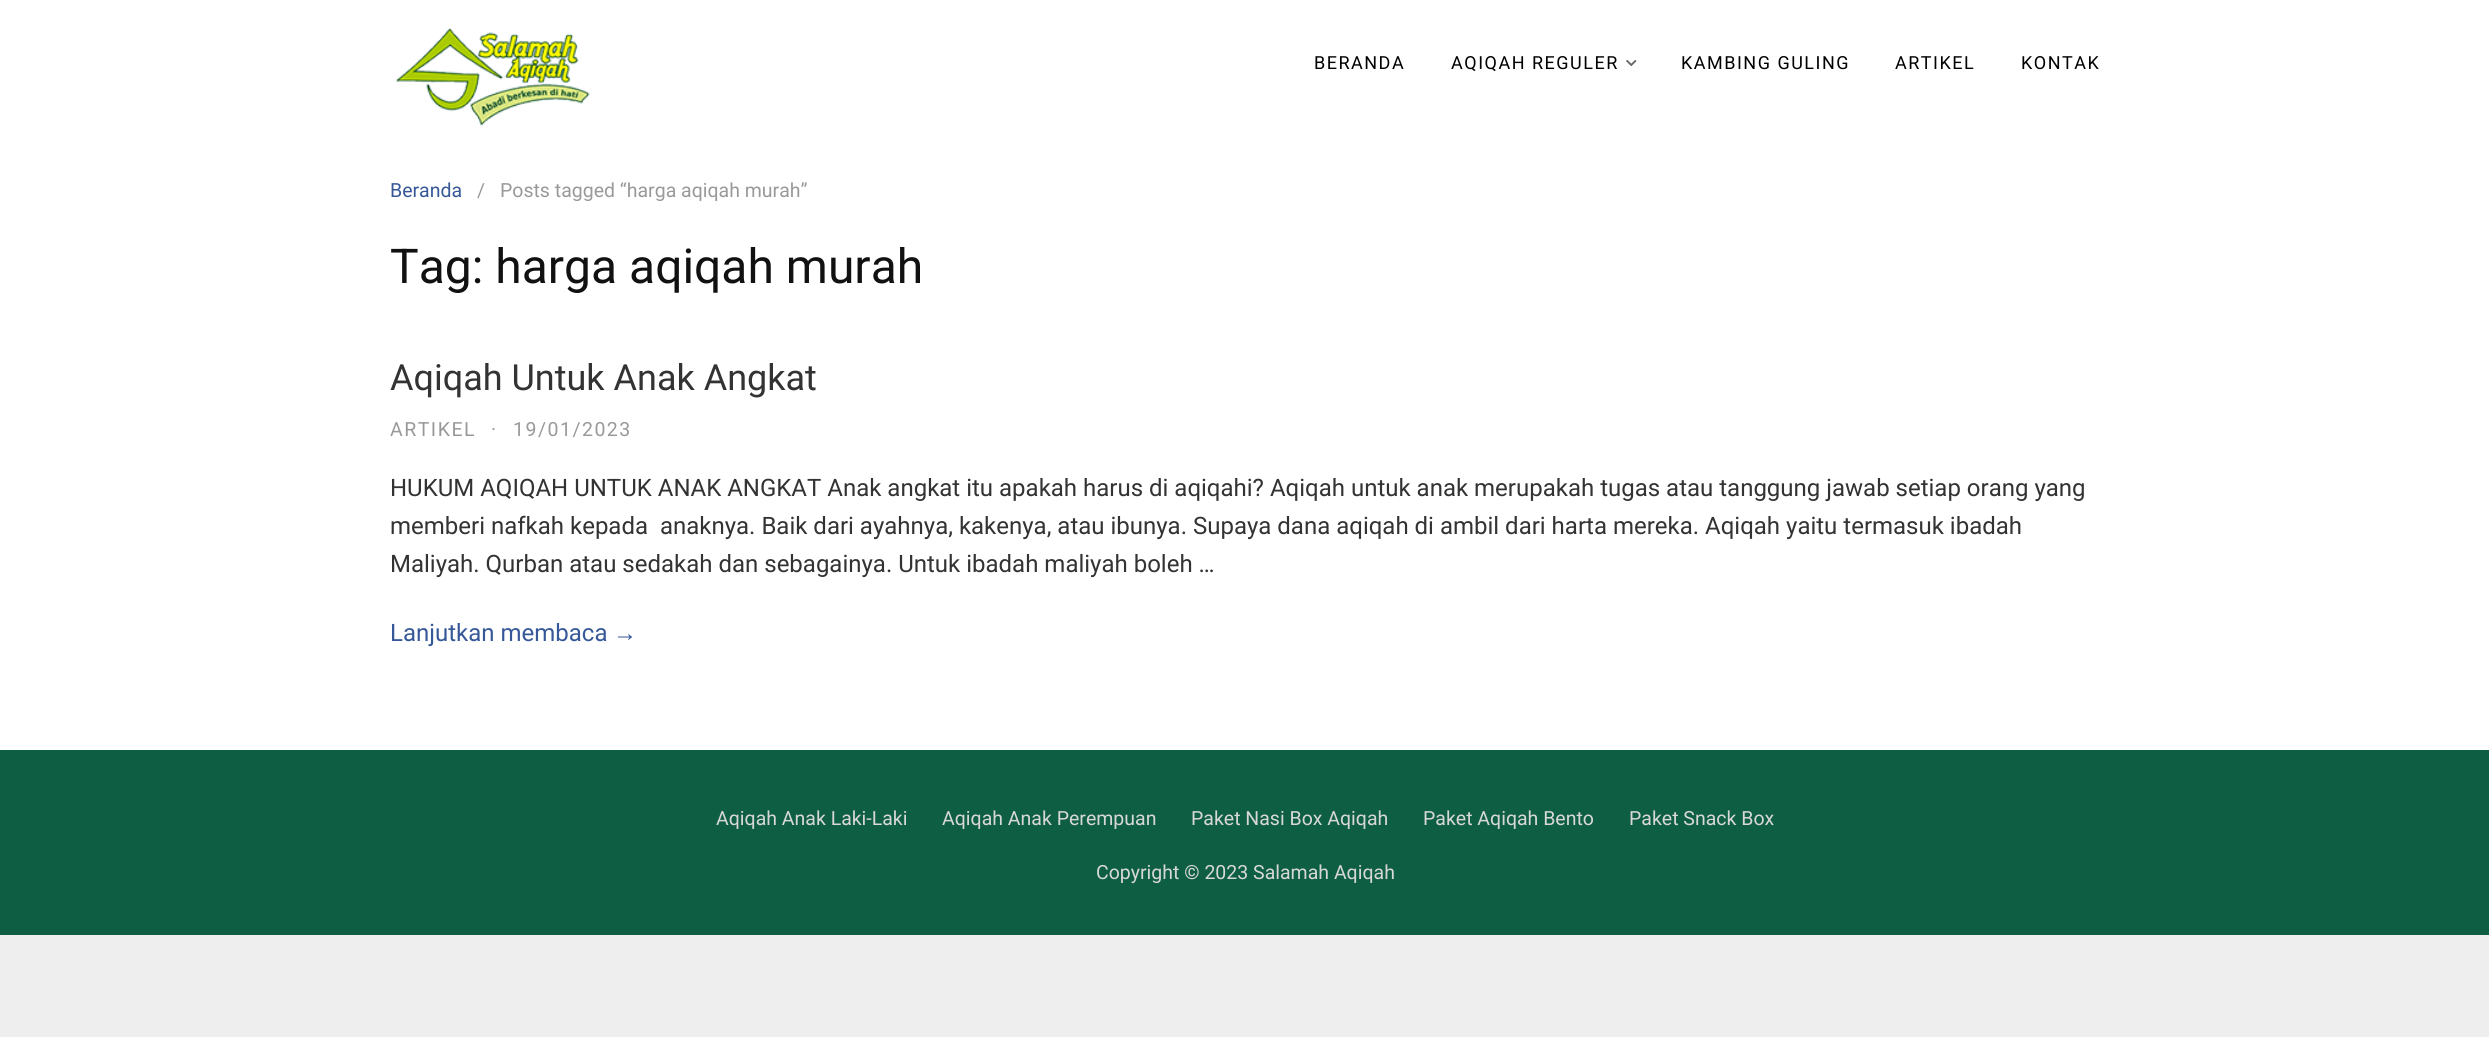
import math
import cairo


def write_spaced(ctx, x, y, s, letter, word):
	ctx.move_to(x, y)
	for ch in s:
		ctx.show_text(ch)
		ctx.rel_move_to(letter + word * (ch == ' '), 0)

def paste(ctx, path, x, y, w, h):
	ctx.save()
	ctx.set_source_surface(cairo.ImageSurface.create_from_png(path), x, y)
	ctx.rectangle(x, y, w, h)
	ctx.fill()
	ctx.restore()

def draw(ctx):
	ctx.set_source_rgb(0.933, 0.933, 0.933)
	ctx.paint()
	ctx.set_source_rgb(1, 1, 1)
	ctx.rectangle(0, 0, 2489, 750)
	ctx.fill()
	paste(ctx, 'media/1.png', 396, 28, 194, 98)
	ctx.select_font_face('Roboto')
	ctx.set_font_size(18)
	ctx.set_source_rgb(0, 0, 0)
	write_spaced(ctx, 1314, 69, 'BERANDA', 1.5, 0)
	write_spaced(ctx, 1451, 69, 'AQIQAH REGULER', 1.5, 0)
	paste(ctx, 'media/2.png', 1626, 60, 11, 6)
	for x, y, s in [
		(1681, 69, 'KAMBING GULING'),
		(1895, 69, 'ARTIKEL'),
		(2021, 69, 'KONTAK'),
	]:
		write_spaced(ctx, x, y, s, 1.5, 0)
	ctx.set_font_size(19.5)
	ctx.set_source_rgb(0.212, 0.345, 0.6)
	ctx.move_to(390, 197)
	ctx.show_text('Beranda')
	ctx.set_source_rgb(0.6, 0.6, 0.6)
	ctx.move_to(477, 197)
	ctx.show_text('/')
	ctx.move_to(500, 197)
	ctx.show_text('Posts tagged “harga aqiqah murah”')
	ctx.set_font_size(48)
	ctx.set_source_rgb(0.067, 0.067, 0.067)
	ctx.move_to(390, 283)
	ctx.show_text('Tag: harga aqiqah murah')
	ctx.set_font_size(36)
	ctx.set_source_rgb(0.2, 0.2, 0.2)
	ctx.move_to(390, 390)
	ctx.show_text('Aqiqah Untuk Anak Angkat')
	ctx.set_font_size(19.5)
	ctx.set_source_rgb(0.6, 0.6, 0.6)
	for x, y, s in [
		(390, 436, 'ARTIKEL'),
		(491, 436, '·'),
		(513, 436, '19/01/2023'),
	]:
		write_spaced(ctx, x, y, s, 1.5, 0)
	ctx.set_font_size(24)
	ctx.set_source_rgb(0.2, 0.2, 0.2)
	for x, y, s in [
		(390, 496, 'HUKUM AQIQAH UNTUK ANAK ANGKAT Anak angkat itu apakah harus di aqiqahi? Aqiqah untuk anak merupakah tugas atau tanggung jawab setiap orang yang'),
		(390, 534, 'memberi nafkah kepada  anaknya. Baik dari ayahnya, kakenya, atau ibunya. Supaya dana aqiqah di ambil dari harta mereka. Aqiqah yaitu termasuk ibadah'),
		(390, 572, 'Maliyah. Qurban atau sedakah dan sebagainya. Untuk ibadah maliyah boleh …'),
	]:
		ctx.move_to(x, y)
		ctx.show_text(s)
	ctx.set_source_rgb(0.212, 0.345, 0.6)
	ctx.move_to(390, 641)
	ctx.show_text('Lanjutkan membaca')
	ctx.select_font_face('Liberation Sans')
	ctx.move_to(613, 641)
	ctx.show_text('→')
	ctx.set_source_rgb(0.055, 0.369, 0.267)
	ctx.rectangle(0, 750, 2489, 185)
	ctx.fill()
	ctx.select_font_face('Roboto')
	ctx.set_font_size(19.5)
	ctx.set_source_rgb(0.847, 0.847, 0.847)
	for x, y, s in [
		(716, 825, 'Aqiqah Anak Laki-Laki'),
		(942, 825, 'Aqiqah Anak Perempuan'),
		(1191, 825, 'Paket Nasi Box Aqiqah'),
		(1423, 825, 'Paket Aqiqah Bento'),
		(1629, 825, 'Paket Snack Box'),
		(1096, 879, 'Copyright © 2023 Salamah Aqiqah'),
	]:
		ctx.move_to(x, y)
		ctx.show_text(s)


surface = cairo.ImageSurface(cairo.FORMAT_RGB24, 2489, 1037)
ctx = cairo.Context(surface)
options = cairo.FontOptions()
options.set_hint_metrics(cairo.HINT_METRICS_OFF)
options.set_hint_style(cairo.HINT_STYLE_NONE)
ctx.set_font_options(options)
ctx.set_miter_limit(4)
draw(ctx)
surface.write_to_png('image.png')
